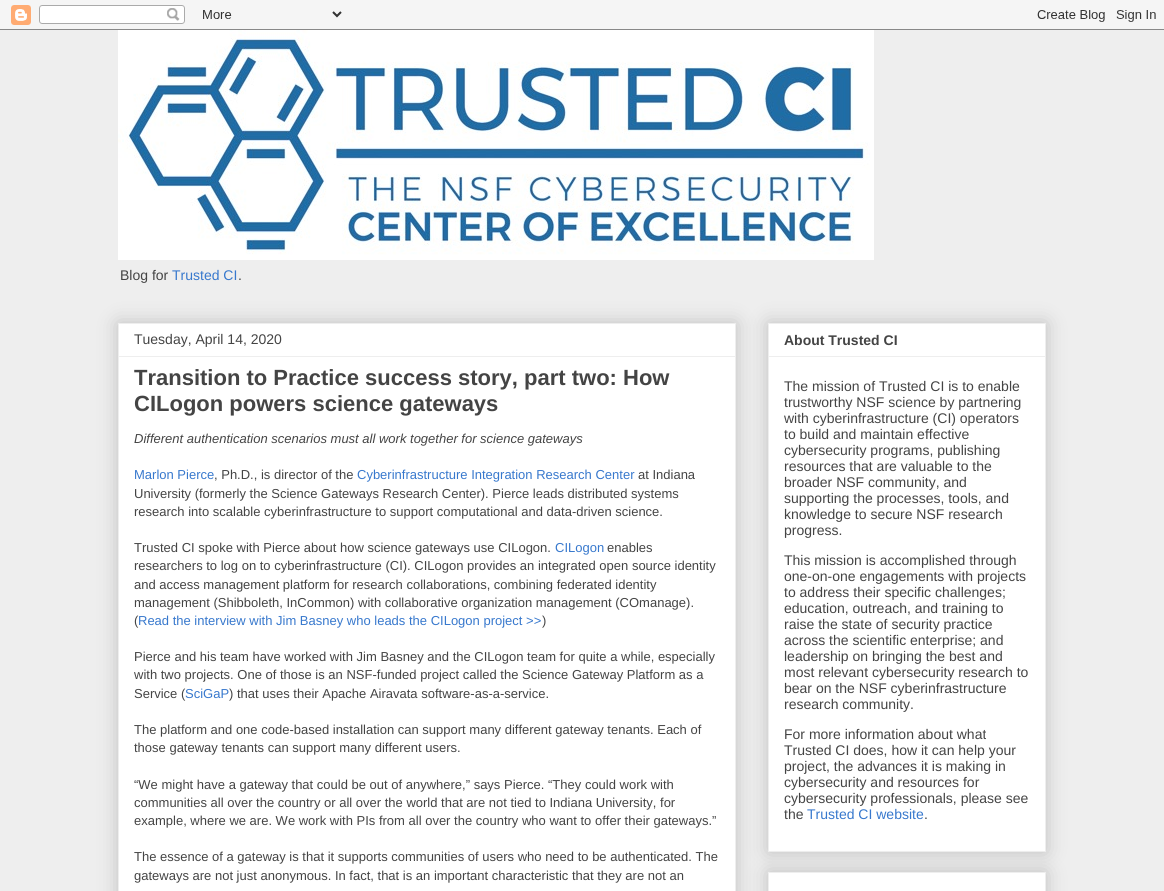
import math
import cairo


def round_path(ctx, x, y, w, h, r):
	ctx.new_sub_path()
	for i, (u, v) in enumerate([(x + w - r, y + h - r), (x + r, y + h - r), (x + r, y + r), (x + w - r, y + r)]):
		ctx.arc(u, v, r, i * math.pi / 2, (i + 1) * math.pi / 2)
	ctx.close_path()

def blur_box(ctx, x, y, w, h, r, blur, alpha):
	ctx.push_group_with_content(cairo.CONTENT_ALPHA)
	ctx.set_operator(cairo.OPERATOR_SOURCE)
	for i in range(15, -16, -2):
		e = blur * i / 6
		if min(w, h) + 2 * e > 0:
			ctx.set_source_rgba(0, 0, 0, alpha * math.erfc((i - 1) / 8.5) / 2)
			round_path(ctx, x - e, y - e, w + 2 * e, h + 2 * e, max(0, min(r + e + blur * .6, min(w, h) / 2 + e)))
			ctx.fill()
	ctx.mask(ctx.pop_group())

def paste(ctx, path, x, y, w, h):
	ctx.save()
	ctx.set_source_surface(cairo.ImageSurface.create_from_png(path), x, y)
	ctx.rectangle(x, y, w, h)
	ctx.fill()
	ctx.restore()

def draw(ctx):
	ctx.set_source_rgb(0.933, 0.933, 0.933)
	ctx.paint()
	paste(ctx, 'media/1.png', 0, 0, 1164, 30)
	paste(ctx, 'media/2.png', 118, 30, 756, 230)
	ctx.select_font_face('Liberation Sans')
	ctx.set_font_size(14)
	ctx.set_source_rgb(0.267, 0.267, 0.267)
	ctx.move_to(120, 280)
	ctx.show_text('Blog for')
	ctx.set_source_rgb(0.216, 0.471, 0.804)
	ctx.move_to(172, 280)
	ctx.show_text('Trusted CI')
	ctx.set_source_rgb(0.267, 0.267, 0.267)
	ctx.move_to(238, 280)
	ctx.show_text('.')
	ctx.set_source_rgb(0, 0, 0)
	blur_box(ctx, 118, 323, 618, 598, 0, 10, 0.2)
	ctx.set_source_rgb(1, 1, 1)
	ctx.rectangle(118.5, 323.5, 617, 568)
	ctx.fill_preserve()
	ctx.set_source_rgb(0.933, 0.933, 0.933)
	ctx.set_line_width(1)
	ctx.stroke()
	ctx.set_source_rgb(0.267, 0.267, 0.267)
	ctx.move_to(134, 344)
	ctx.show_text('Tuesday, April 14, 2020')
	ctx.set_source_rgb(0.933, 0.933, 0.933)
	ctx.rectangle(119, 356, 616, 1)
	ctx.fill()
	ctx.select_font_face('Liberation Sans', cairo.FONT_SLANT_NORMAL, cairo.FONT_WEIGHT_BOLD)
	ctx.set_font_size(22)
	ctx.set_source_rgb(0.267, 0.267, 0.267)
	ctx.move_to(134, 385)
	ctx.show_text('Transition to Practice success story, part two: How')
	ctx.move_to(134, 411)
	ctx.show_text('CILogon powers science gateways')
	ctx.select_font_face('Liberation Sans', cairo.FONT_SLANT_ITALIC)
	ctx.set_font_size(13)
	ctx.move_to(134, 443)
	ctx.show_text('Different authentication scenarios must all work together for science gateways')
	ctx.select_font_face('Liberation Sans')
	ctx.set_source_rgb(0.216, 0.471, 0.804)
	ctx.move_to(134, 479)
	ctx.show_text('Marlon Pierce')
	ctx.set_source_rgb(0.267, 0.267, 0.267)
	ctx.move_to(214, 479)
	ctx.show_text(', Ph.D., is director of the')
	ctx.set_source_rgb(0.216, 0.471, 0.804)
	ctx.move_to(357, 479)
	ctx.show_text('Cyberinfrastructure Integration Research Center')
	ctx.set_source_rgb(0.267, 0.267, 0.267)
	for x, y, s in [
		(638, 479, 'at Indiana'),
		(134, 498, 'University (formerly the Science Gateways Research Center). Pierce leads distributed systems'),
		(134, 516, 'research into scalable cyberinfrastructure to support computational and data-driven science.'),
		(134, 552, 'Trusted CI spoke with Pierce about how science gateways use CILogon.'),
	]:
		ctx.move_to(x, y)
		ctx.show_text(s)
	ctx.set_source_rgb(0.216, 0.471, 0.804)
	ctx.move_to(555, 552)
	ctx.show_text('CILogon')
	ctx.set_source_rgb(0.267, 0.267, 0.267)
	for x, y, s in [
		(607, 552, 'enables'),
		(134, 570, 'researchers to log on to cyberinfrastructure (CI). CILogon provides an integrated open source identity'),
		(134, 589, 'and access management platform for research collaborations, combining federated identity'),
		(134, 607, 'management (Shibboleth, InCommon) with collaborative organization management (COmanage).'),
		(134, 625, '('),
	]:
		ctx.move_to(x, y)
		ctx.show_text(s)
	ctx.set_source_rgb(0.216, 0.471, 0.804)
	ctx.move_to(138, 625)
	ctx.show_text('Read the interview with Jim Basney who leads the CILogon project >>')
	ctx.set_source_rgb(0.267, 0.267, 0.267)
	for x, y, s in [
		(542, 625, ')'),
		(134, 661, 'Pierce and his team have worked with Jim Basney and the CILogon team for quite a while, especially'),
		(134, 679, 'with two projects. One of those is an NSF-funded project called the Science Gateway Platform as a'),
		(134, 698, 'Service ('),
	]:
		ctx.move_to(x, y)
		ctx.show_text(s)
	ctx.set_source_rgb(0.216, 0.471, 0.804)
	ctx.move_to(185, 698)
	ctx.show_text('SciGaP')
	ctx.set_source_rgb(0.267, 0.267, 0.267)
	for x, y, s in [
		(229, 698, ') that uses their Apache Airavata software-as-a-service.'),
		(134, 734, 'The platform and one code-based installation can support many different gateway tenants. Each of'),
		(134, 752, 'those gateway tenants can support many different users.'),
		(134, 789, '“We might have a gateway that could be out of anywhere,” says Pierce. “They could work with'),
		(134, 807, 'communities all over the country or all over the world that are not tied to Indiana University, for'),
		(134, 825, 'example, where we are. We work with PIs from all over the country who want to offer their gateways.”'),
		(134, 861, 'The essence of a gateway is that it supports communities of users who need to be authenticated. The'),
		(134, 880, 'gateways are not just anonymous. In fact, that is an important characteristic that they are not an'),
	]:
		ctx.move_to(x, y)
		ctx.show_text(s)
	ctx.set_source_rgb(0, 0, 0)
	blur_box(ctx, 768, 323, 278, 529, 0, 10, 0.2)
	ctx.set_source_rgb(1, 1, 1)
	ctx.rectangle(768.5, 323.5, 277, 528)
	ctx.fill_preserve()
	ctx.set_source_rgb(0.933, 0.933, 0.933)
	ctx.stroke()
	ctx.select_font_face('Liberation Sans', cairo.FONT_SLANT_NORMAL, cairo.FONT_WEIGHT_BOLD)
	ctx.set_font_size(14)
	ctx.set_source_rgb(0.267, 0.267, 0.267)
	ctx.move_to(784, 345)
	ctx.show_text('About Trusted CI')
	ctx.set_source_rgb(0.933, 0.933, 0.933)
	ctx.rectangle(769, 356, 276, 1)
	ctx.fill()
	ctx.select_font_face('Liberation Sans')
	ctx.set_source_rgb(0.267, 0.267, 0.267)
	for x, y, s in [
		(784, 391, 'The mission of Trusted CI is to enable'),
		(784, 407, 'trustworthy NSF science by partnering'),
		(784, 423, 'with cyberinfrastructure (CI) operators'),
		(784, 439, 'to build and maintain effective'),
		(784, 455, 'cybersecurity programs, publishing'),
		(784, 471, 'resources that are valuable to the'),
		(784, 487, 'broader NSF community, and'),
		(784, 503, 'supporting the processes, tools, and'),
		(784, 519, 'knowledge to secure NSF research'),
		(784, 535, 'progress.'),
		(784, 565, 'This mission is accomplished through'),
		(784, 581, 'one-on-one engagements with projects'),
		(784, 597, 'to address their specific challenges;'),
		(784, 613, 'education, outreach, and training to'),
		(784, 629, 'raise the state of security practice'),
		(784, 645, 'across the scientific enterprise; and'),
		(784, 661, 'leadership on bringing the best and'),
		(784, 677, 'most relevant cybersecurity research to'),
		(784, 693, 'bear on the NSF cyberinfrastructure'),
		(784, 709, 'research community.'),
		(784, 739, 'For more information about what'),
		(784, 755, 'Trusted CI does, how it can help your'),
		(784, 771, 'project, the advances it is making in'),
		(784, 787, 'cybersecurity and resources for'),
		(784, 803, 'cybersecurity professionals, please see'),
		(784, 819, 'the'),
	]:
		ctx.move_to(x, y)
		ctx.show_text(s)
	ctx.set_source_rgb(0.216, 0.471, 0.804)
	ctx.move_to(807, 819)
	ctx.show_text('Trusted CI website')
	ctx.set_source_rgb(0.267, 0.267, 0.267)
	ctx.move_to(924, 819)
	ctx.show_text('.')
	ctx.set_source_rgb(0, 0, 0)
	blur_box(ctx, 768, 872, 278, 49, 0, 10, 0.2)
	ctx.set_source_rgb(1, 1, 1)
	ctx.rectangle(768.5, 872.5, 277, 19)
	ctx.fill_preserve()
	ctx.set_source_rgb(0.933, 0.933, 0.933)
	ctx.stroke()


surface = cairo.ImageSurface(cairo.FORMAT_RGB24, 1164, 891)
ctx = cairo.Context(surface)
options = cairo.FontOptions()
options.set_hint_metrics(cairo.HINT_METRICS_OFF)
options.set_hint_style(cairo.HINT_STYLE_NONE)
ctx.set_font_options(options)
ctx.set_miter_limit(4)
draw(ctx)
surface.write_to_png('image.png')
